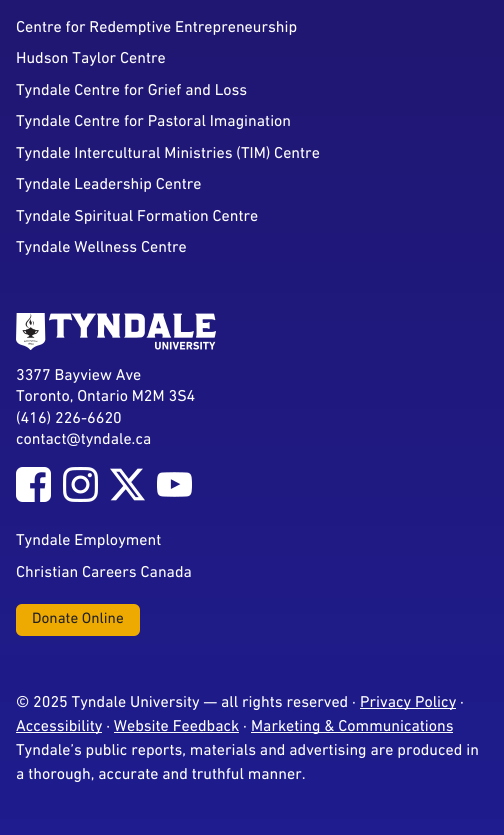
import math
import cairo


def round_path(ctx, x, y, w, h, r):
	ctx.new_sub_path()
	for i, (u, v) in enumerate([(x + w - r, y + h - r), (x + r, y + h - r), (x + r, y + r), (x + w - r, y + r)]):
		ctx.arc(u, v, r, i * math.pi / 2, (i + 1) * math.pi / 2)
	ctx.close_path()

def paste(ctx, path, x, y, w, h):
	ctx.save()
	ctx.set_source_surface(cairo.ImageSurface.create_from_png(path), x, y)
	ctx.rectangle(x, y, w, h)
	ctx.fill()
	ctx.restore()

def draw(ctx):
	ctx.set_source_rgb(1, 1, 1)
	ctx.paint()
	gradient = cairo.LinearGradient(252, -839, 252, 835)
	gradient.add_color_stop_rgba(0, 0.133, 0.067, 0.333, 1)
	gradient.add_color_stop_rgba(1, 0.118, 0.11, 0.557, 1)
	ctx.set_source(gradient)
	ctx.rectangle(0, 0, 504, 835)
	ctx.fill()
	ctx.select_font_face('DIN Next')
	ctx.set_font_size(16)
	ctx.set_source_rgb(1, 1, 1)
	for x, y, s in [
		(16, 32, 'Centre for Redemptive Entrepreneurship'),
		(16, 63, 'Hudson Taylor Centre'),
		(16, 95, 'Tyndale Centre for Grief and Loss'),
		(16, 126, 'Tyndale Centre for Pastoral Imagination'),
		(16, 158, 'Tyndale Intercultural Ministries (TIM) Centre'),
		(16, 189, 'Tyndale Leadership Centre'),
		(16, 221, 'Tyndale Spiritual Formation Centre'),
		(16, 252, 'Tyndale Wellness Centre'),
	]:
		ctx.move_to(x, y)
		ctx.show_text(s)
	paste(ctx, 'media/1.png', 16, 313, 200, 37)
	for x, y, s in [
		(16, 380, '3377 Bayview Ave'),
		(16, 401, 'Toronto, Ontario M2M 3S4'),
		(16, 423, '(416) 226-6620'),
		(16, 444, 'contact@tyndale.ca'),
	]:
		ctx.move_to(x, y)
		ctx.show_text(s)
	paste(ctx, 'media/2.png', 16, 467, 35, 35)
	paste(ctx, 'media/3.png', 63, 467, 35, 35)
	paste(ctx, 'media/4.png', 110, 468, 35, 33)
	paste(ctx, 'media/5.png', 157, 472, 35, 25)
	ctx.move_to(16, 545)
	ctx.show_text('Tyndale Employment')
	ctx.move_to(16, 577)
	ctx.show_text('Christian Careers Canada')
	ctx.set_source_rgb(0.933, 0.667, 0)
	round_path(ctx, 16, 604, 124, 32, 6)
	ctx.fill()
	ctx.set_font_size(15.25)
	ctx.set_source_rgb(0.133, 0.133, 0.133)
	ctx.move_to(32, 623)
	ctx.show_text('Donate Online')
	ctx.set_font_size(16)
	ctx.set_source_rgb(1, 1, 1)
	ctx.move_to(16, 707)
	ctx.show_text('© 2025 Tyndale University — all rights reserved ·')
	ctx.rectangle(360, 708, 96, 1)
	ctx.fill()
	ctx.move_to(360, 707)
	ctx.show_text('Privacy Policy ·')
	ctx.rectangle(16, 732, 86, 1)
	ctx.fill()
	ctx.move_to(16, 731)
	ctx.show_text('Accessibility · Website Feedback ·')
	ctx.rectangle(251, 732, 202, 1)
	ctx.fill()
	ctx.move_to(251, 731)
	ctx.show_text('Marketing & Communications')
	ctx.rectangle(114, 732, 125, 1)
	ctx.fill()
	ctx.move_to(16, 755)
	ctx.show_text('Tyndale’s public reports, materials and advertising are produced in')
	ctx.move_to(16, 779)
	ctx.show_text('a thorough, accurate and truthful manner.')


surface = cairo.ImageSurface(cairo.FORMAT_RGB24, 504, 835)
ctx = cairo.Context(surface)
options = cairo.FontOptions()
options.set_hint_metrics(cairo.HINT_METRICS_OFF)
options.set_hint_style(cairo.HINT_STYLE_NONE)
ctx.set_font_options(options)
ctx.set_miter_limit(4)
draw(ctx)
surface.write_to_png('image.png')
